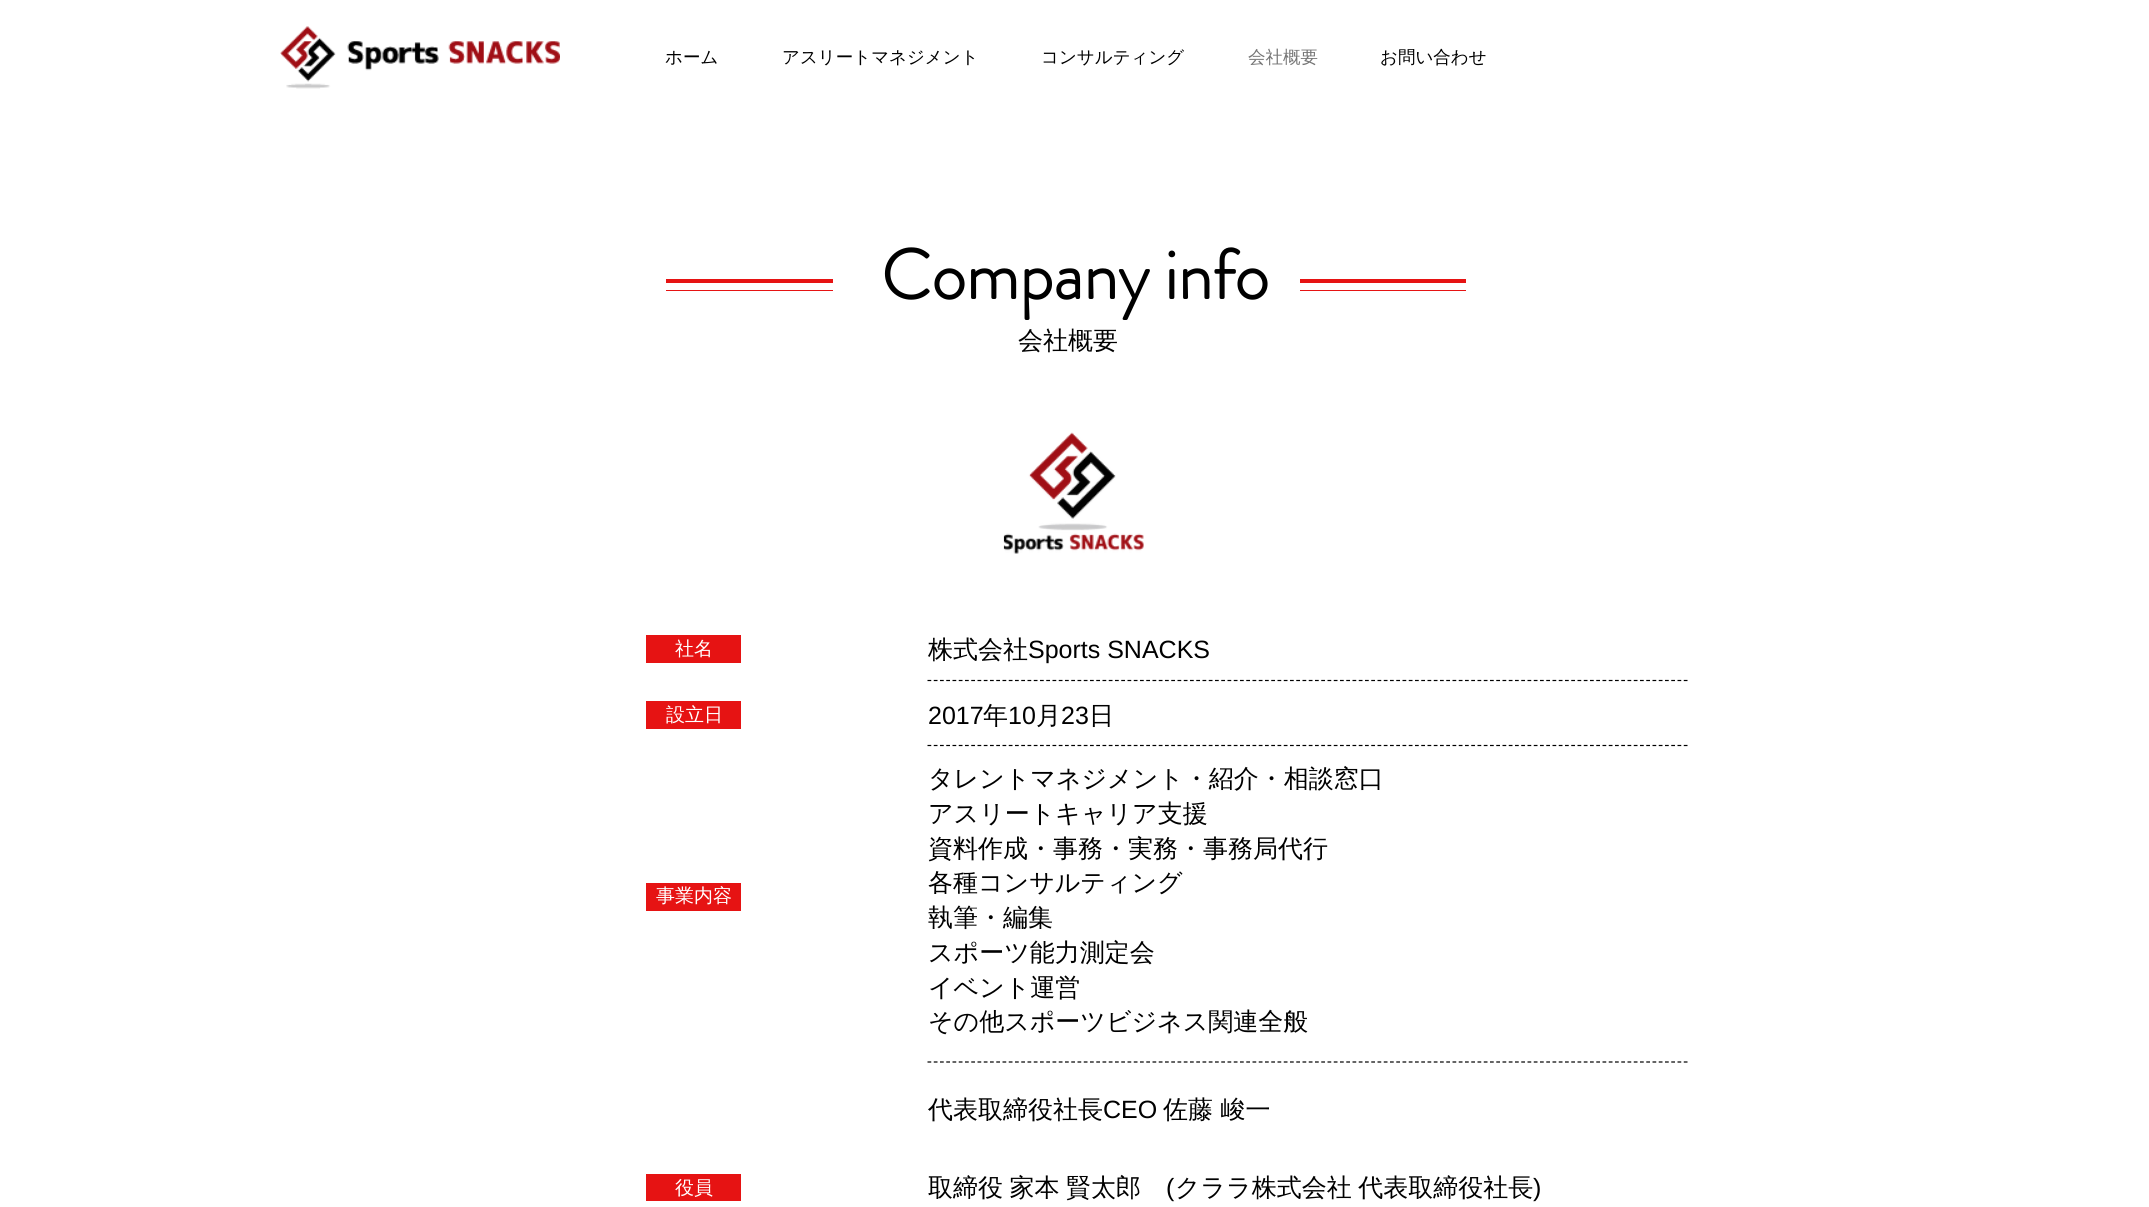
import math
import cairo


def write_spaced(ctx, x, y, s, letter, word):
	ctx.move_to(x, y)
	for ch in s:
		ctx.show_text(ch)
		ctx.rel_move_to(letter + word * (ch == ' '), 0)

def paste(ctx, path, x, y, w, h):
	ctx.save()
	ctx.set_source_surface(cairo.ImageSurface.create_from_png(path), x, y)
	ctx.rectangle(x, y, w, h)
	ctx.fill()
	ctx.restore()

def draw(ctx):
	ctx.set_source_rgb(1, 1, 1)
	ctx.paint()
	paste(ctx, 'media/1.png', 280, 26, 280, 63)
	ctx.select_font_face('WenQuanYi Zen Hei Medium')
	ctx.set_font_size(17.5)
	ctx.set_source_rgb(0, 0, 0)
	for x, y, s in [
		(665, 63, 'ホーム'),
		(782, 63, 'アスリートマネジメント'),
		(1041, 63, 'コンサルティング'),
	]:
		ctx.move_to(x, y)
		ctx.show_text(s)
	ctx.set_source_rgb(0.459, 0.459, 0.459)
	ctx.move_to(1248, 63)
	ctx.show_text('会社概要')
	ctx.set_source_rgb(0, 0, 0)
	ctx.move_to(1380, 63)
	ctx.show_text('お問い合わせ')
	ctx.set_source_rgb(0.902, 0.075, 0.075)
	ctx.rectangle(666, 279, 167, 4)
	ctx.fill()
	ctx.rectangle(666, 290, 167, 1)
	ctx.fill()
	ctx.select_font_face('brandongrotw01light', cairo.FONT_SLANT_NORMAL, cairo.FONT_WEIGHT_BOLD)
	ctx.set_font_size(70)
	ctx.set_source_rgb(0, 0, 0)
	ctx.move_to(881, 299)
	ctx.show_text('Company info')
	ctx.set_source_rgb(0.902, 0.075, 0.075)
	ctx.rectangle(1300, 279, 166, 4)
	ctx.fill()
	ctx.rectangle(1300, 290, 166, 1)
	ctx.fill()
	ctx.select_font_face('WenQuanYi Zen Hei Medium')
	ctx.set_font_size(25)
	ctx.set_source_rgb(0, 0, 0)
	ctx.move_to(1018, 349)
	ctx.show_text('会社概要')
	paste(ctx, 'media/2.png', 1003, 432, 141, 122)
	ctx.set_source_rgb(0.902, 0.075, 0.075)
	ctx.rectangle(646, 635, 95, 28)
	ctx.fill()
	ctx.set_font_size(19)
	ctx.set_source_rgb(1, 1, 1)
	ctx.move_to(675, 655)
	ctx.show_text('社名')
	ctx.set_font_size(25)
	ctx.set_source_rgb(0, 0, 0)
	ctx.move_to(928, 658)
	ctx.show_text('株式会社')
	ctx.select_font_face('Liberation Sans')
	ctx.move_to(1028, 658)
	ctx.show_text('Sports SNACKS')
	ctx.new_path()
	ctx.move_to(927.5, 680.5)
	ctx.line_to(1687.5, 680.5)
	ctx.set_line_width(1.2)
	ctx.set_dash([3.75, 2.5])
	ctx.stroke()
	ctx.set_source_rgb(0.902, 0.075, 0.075)
	ctx.rectangle(646, 701, 95, 28)
	ctx.fill()
	ctx.select_font_face('WenQuanYi Zen Hei Medium')
	ctx.set_font_size(19)
	ctx.set_source_rgb(1, 1, 1)
	ctx.move_to(666, 721)
	ctx.show_text('設立日')
	ctx.select_font_face('Liberation Sans')
	ctx.set_font_size(25)
	ctx.set_source_rgb(0, 0, 0)
	ctx.move_to(928, 724)
	ctx.show_text('2017')
	ctx.select_font_face('WenQuanYi Zen Hei Medium')
	ctx.move_to(983, 724)
	ctx.show_text('年')
	ctx.select_font_face('Liberation Sans')
	ctx.move_to(1008, 724)
	ctx.show_text('10')
	ctx.select_font_face('WenQuanYi Zen Hei Medium')
	ctx.move_to(1036, 724)
	ctx.show_text('月')
	ctx.select_font_face('Liberation Sans')
	ctx.move_to(1061, 724)
	ctx.show_text('23')
	ctx.select_font_face('WenQuanYi Zen Hei Medium')
	ctx.move_to(1089, 724)
	ctx.show_text('日')
	ctx.new_path()
	ctx.move_to(927.5, 745.5)
	ctx.line_to(1687.5, 745.5)
	ctx.stroke()
	ctx.set_source_rgb(0.902, 0.075, 0.075)
	ctx.rectangle(646, 883, 95, 28)
	ctx.fill()
	ctx.set_source_rgb(0, 0, 0)
	for x, y, s in [
		(928, 787, 'タレントマネジメント・紹介・相談窓口'),
		(928, 822, 'アスリートキャリア支援'),
		(928, 857, '資料作成・事務・実務・事務局代行'),
		(928, 891, '各種コンサルティング'),
		(928, 926, '執筆・編集'),
		(928, 961, 'スポーツ能力測定会'),
		(928, 996, 'イベント運営'),
		(928, 1030, 'その他スポーツビジネス関連全般'),
	]:
		ctx.move_to(x, y)
		ctx.show_text(s)
	ctx.set_font_size(19)
	ctx.set_source_rgb(1, 1, 1)
	ctx.move_to(656, 902)
	ctx.show_text('事業内容')
	ctx.new_path()
	ctx.move_to(927.5, 1062)
	ctx.line_to(1687.5, 1062)
	ctx.set_source_rgb(0, 0, 0)
	ctx.stroke()
	ctx.set_font_size(25)
	ctx.move_to(928, 1118)
	ctx.show_text('代表取締役社長')
	ctx.select_font_face('Liberation Sans')
	ctx.move_to(1103, 1118)
	ctx.show_text('CEO')
	ctx.select_font_face('WenQuanYi Zen Hei Medium')
	ctx.move_to(1163, 1118)
	ctx.show_text('佐藤 峻一')
	ctx.set_source_rgb(0.902, 0.075, 0.075)
	ctx.rectangle(646, 1174, 95, 27)
	ctx.fill()
	ctx.set_font_size(19)
	ctx.set_source_rgb(1, 1, 1)
	ctx.move_to(675, 1194)
	ctx.show_text('役員')
	ctx.set_font_size(25)
	ctx.set_source_rgb(0, 0, 0)
	write_spaced(ctx, 928, 1196, '取締役 家本 賢太郎', 0, -1)
	ctx.select_font_face('Liberation Sans')
	ctx.move_to(1166, 1196)
	ctx.show_text('(')
	ctx.select_font_face('WenQuanYi Zen Hei Medium')
	write_spaced(ctx, 1175, 1196, 'クララ株式会社 代表取締役社長', 0, -1)
	ctx.select_font_face('Liberation Sans')
	ctx.move_to(1533, 1196)
	ctx.show_text(')')


surface = cairo.ImageSurface(cairo.FORMAT_RGB24, 2149, 1207)
ctx = cairo.Context(surface)
options = cairo.FontOptions()
options.set_hint_metrics(cairo.HINT_METRICS_OFF)
options.set_hint_style(cairo.HINT_STYLE_NONE)
ctx.set_font_options(options)
ctx.set_miter_limit(4)
draw(ctx)
surface.write_to_png('image.png')
